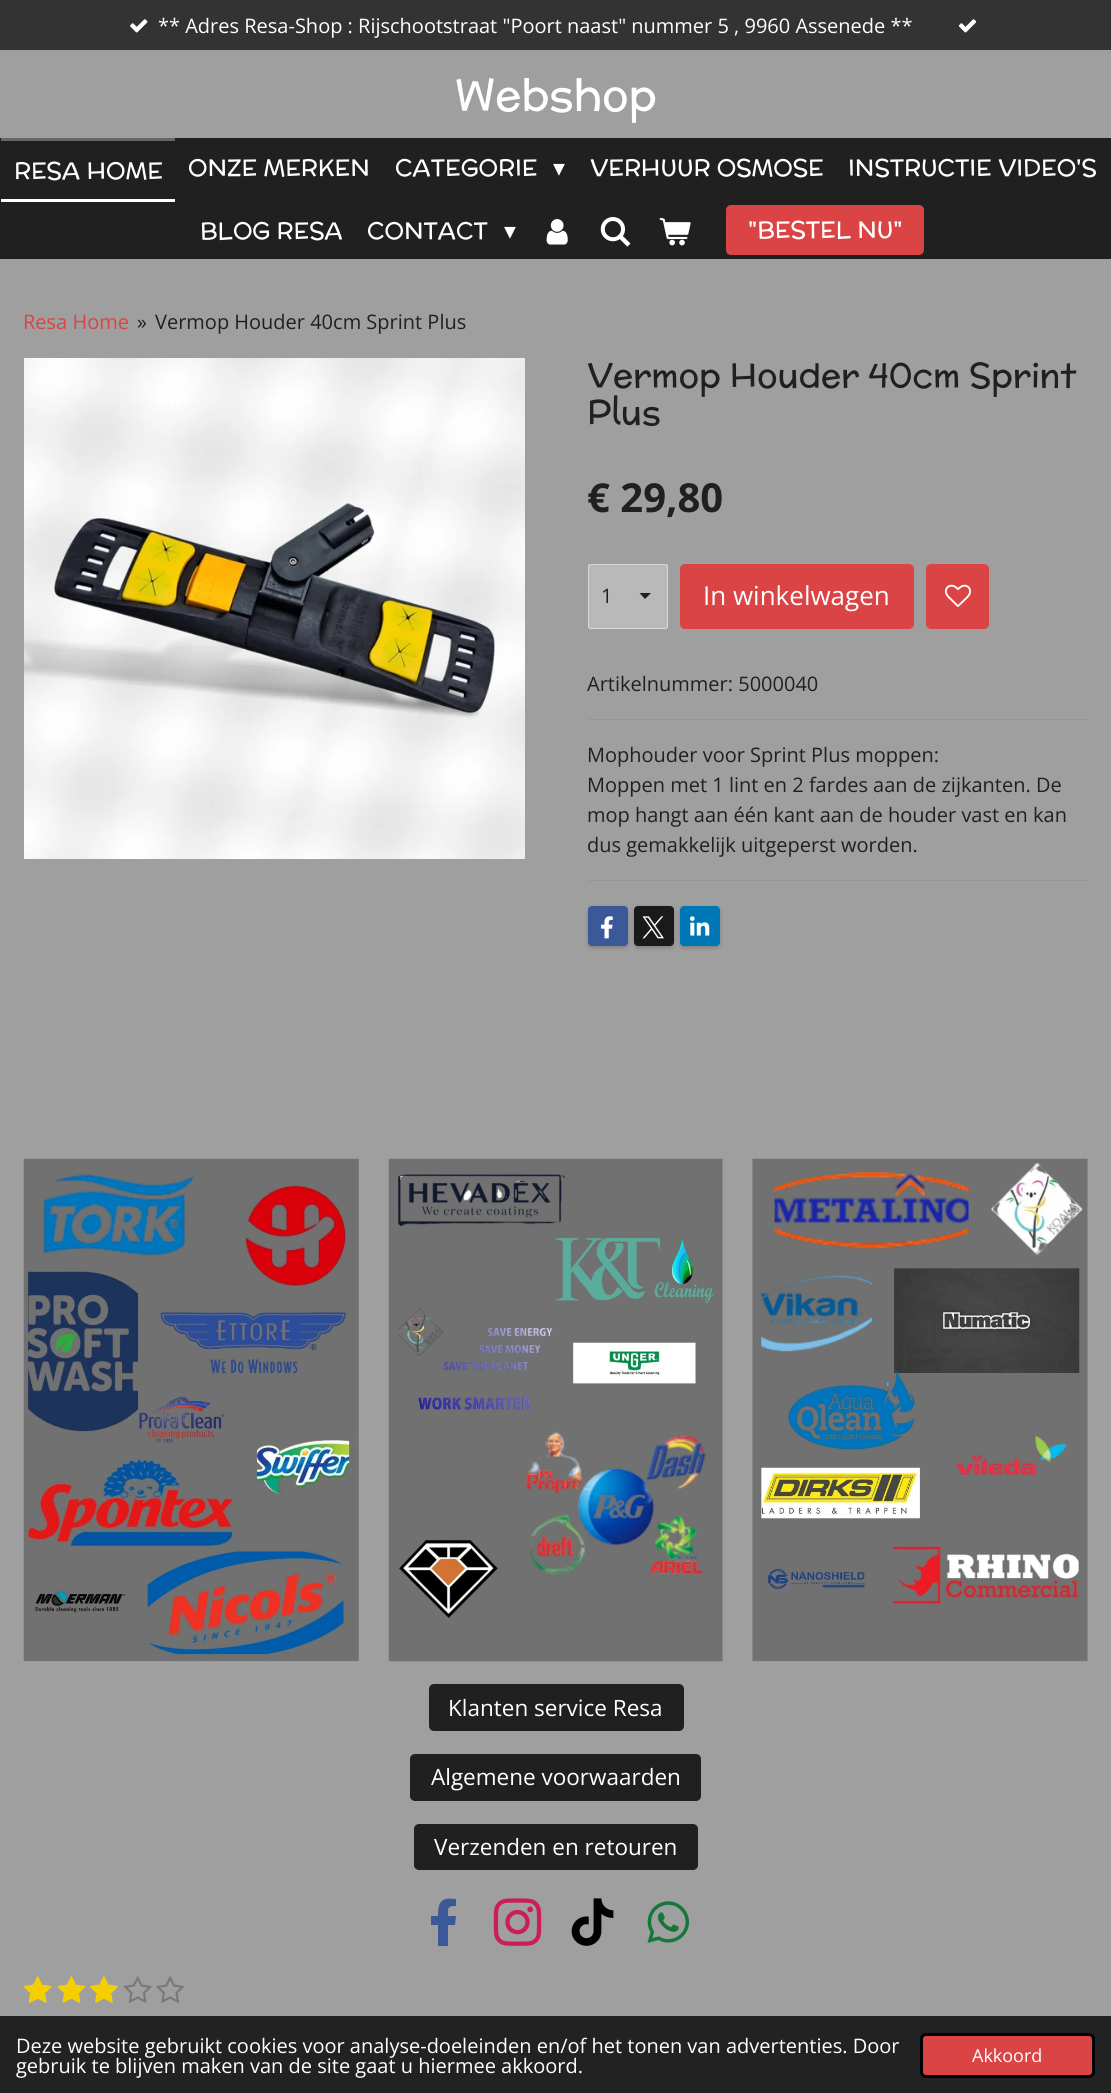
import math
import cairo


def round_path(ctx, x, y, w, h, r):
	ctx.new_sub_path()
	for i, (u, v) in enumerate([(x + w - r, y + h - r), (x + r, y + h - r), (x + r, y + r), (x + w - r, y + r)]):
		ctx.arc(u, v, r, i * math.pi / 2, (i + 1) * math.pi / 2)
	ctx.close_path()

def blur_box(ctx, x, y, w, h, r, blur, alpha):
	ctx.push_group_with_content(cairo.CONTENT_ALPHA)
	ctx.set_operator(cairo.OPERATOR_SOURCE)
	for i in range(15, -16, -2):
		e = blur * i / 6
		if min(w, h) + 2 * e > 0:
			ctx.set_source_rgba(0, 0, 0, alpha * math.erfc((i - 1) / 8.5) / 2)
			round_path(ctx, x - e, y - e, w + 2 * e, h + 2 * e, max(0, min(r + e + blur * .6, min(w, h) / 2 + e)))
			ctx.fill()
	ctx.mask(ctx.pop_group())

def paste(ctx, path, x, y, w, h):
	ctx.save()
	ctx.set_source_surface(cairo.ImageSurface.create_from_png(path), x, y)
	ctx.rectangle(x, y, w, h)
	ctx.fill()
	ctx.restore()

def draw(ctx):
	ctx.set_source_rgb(0.2, 0.2, 0.2)
	ctx.paint()
	paste(ctx, 'media/1.png', 130, 19, 18, 14)
	ctx.select_font_face('Open Sans')
	ctx.set_font_size(20)
	ctx.set_source_rgb(1, 1, 1)
	ctx.move_to(158, 33)
	ctx.show_text('** Adres Resa-Shop : Rijschootstraat "Poort naast" nummer 5 , 9960 Assenede **')
	paste(ctx, 'media/2.png', 958, 19, 19, 14)
	ctx.set_source_rgb(0.624, 0.624, 0.624)
	ctx.rectangle(0, 50, 1111, 88)
	ctx.fill()
	ctx.select_font_face('McLaren')
	ctx.set_font_size(43.75)
	ctx.set_source_rgb(1, 1, 1)
	ctx.move_to(455, 110)
	ctx.show_text('Webshop')
	ctx.set_source_rgb(0.125, 0.125, 0.125)
	ctx.rectangle(0, 138, 1111, 121)
	ctx.fill()
	ctx.set_source_rgb(0.4, 0.4, 0.4)
	ctx.rectangle(1, 138, 174, 3)
	ctx.fill()
	ctx.set_source_rgb(1, 1, 1)
	ctx.rectangle(1, 199, 174, 3)
	ctx.fill()
	ctx.set_font_size(23.75)
	for x, y, s in [
		(14, 179, 'RESA HOME'),
		(188, 176, 'ONZE MERKEN'),
		(395, 176, 'CATEGORIE'),
	]:
		ctx.move_to(x, y)
		ctx.show_text(s)
	ctx.select_font_face('DejaVu Sans')
	ctx.move_to(553, 176)
	ctx.show_text('▾')
	ctx.select_font_face('McLaren')
	for x, y, s in [
		(590, 176, 'VERHUUR OSMOSE'),
		(848, 176, 'INSTRUCTIE VIDEO\'S'),
		(200, 239, 'BLOG RESA'),
		(367, 239, 'CONTACT'),
	]:
		ctx.move_to(x, y)
		ctx.show_text(s)
	ctx.select_font_face('DejaVu Sans')
	ctx.move_to(504, 239)
	ctx.show_text('▾')
	paste(ctx, 'media/3.png', 546, 219, 22, 26)
	paste(ctx, 'media/4.png', 600, 217, 31, 30)
	paste(ctx, 'media/5.png', 659, 217, 32, 29)
	ctx.set_source_rgb(0.855, 0.267, 0.267)
	round_path(ctx, 726, 205, 198, 50, 5)
	ctx.fill()
	ctx.select_font_face('McLaren')
	ctx.set_source_rgb(1, 1, 1)
	ctx.move_to(748, 238)
	ctx.show_text('"BESTEL NU"')
	ctx.set_source_rgb(0.624, 0.624, 0.624)
	ctx.rectangle(0, 259, 1111, 1757)
	ctx.fill()
	ctx.select_font_face('Open Sans')
	ctx.set_font_size(20)
	ctx.set_source_rgb(0.855, 0.267, 0.267)
	ctx.move_to(23, 329)
	ctx.show_text('Resa Home')
	ctx.set_source_rgb(0.125, 0.125, 0.125)
	ctx.move_to(137, 329)
	ctx.show_text('»')
	ctx.move_to(155, 329)
	ctx.show_text('Vermop Houder 40cm Sprint Plus')
	paste(ctx, 'media/6.png', 24, 358, 501, 501)
	ctx.select_font_face('McLaren')
	ctx.set_font_size(33.75)
	ctx.move_to(587, 387)
	ctx.show_text('Vermop Houder 40cm Sprint')
	ctx.move_to(587, 424)
	ctx.show_text('Plus')
	ctx.select_font_face('Open Sans', cairo.FONT_SLANT_NORMAL, cairo.FONT_WEIGHT_BOLD)
	ctx.set_font_size(40)
	ctx.move_to(587, 512)
	ctx.show_text('€ 29,80')
	ctx.set_source_rgb(0.725, 0.725, 0.725)
	round_path(ctx, 588, 564, 80, 65, 2.5)
	ctx.fill()
	ctx.save()
	ctx.rectangle(639, 593, 12, 6)
	ctx.clip()
	ctx.set_source_rgb(0.125, 0.125, 0.125)
	ctx.new_path()
	ctx.move_to(645, 599)
	ctx.line_to(639, 592.5)
	ctx.line_to(651.5, 592.5)
	ctx.close_path()
	ctx.fill()
	ctx.restore()
	round_path(ctx, 588.5, 564.5, 79, 64, 2)
	ctx.set_source_rgba(0.973, 0.973, 0.973, 0.5)
	ctx.set_line_width(1)
	ctx.stroke()
	ctx.select_font_face('Open Sans')
	ctx.set_font_size(20)
	ctx.set_source_rgb(0.125, 0.125, 0.125)
	ctx.move_to(601, 603)
	ctx.show_text('1')
	ctx.set_source_rgb(0.855, 0.267, 0.267)
	round_path(ctx, 680, 564, 234, 65, 5)
	ctx.fill()
	ctx.set_font_size(26)
	ctx.set_source_rgb(1, 1, 1)
	ctx.move_to(703, 605)
	ctx.show_text('In winkelwagen')
	ctx.set_source_rgb(0.855, 0.267, 0.267)
	round_path(ctx, 926, 564, 63, 65, 5)
	ctx.fill()
	paste(ctx, 'media/7.png', 945, 584, 26, 23)
	ctx.set_font_size(20)
	ctx.set_source_rgb(0.125, 0.125, 0.125)
	ctx.move_to(587, 691)
	ctx.show_text('Artikelnummer: 5000040')
	ctx.set_source_rgb(0.588, 0.588, 0.588)
	ctx.rectangle(588, 719, 500, 1)
	ctx.fill()
	ctx.set_source_rgb(0.125, 0.125, 0.125)
	for x, y, s in [
		(587, 762, 'Mophouder voor Sprint Plus moppen:'),
		(587, 792, 'Moppen met 1 lint en 2 fardes aan de zijkanten. De'),
		(587, 822, 'mop hangt aan één kant aan de houder vast en kan'),
		(587, 852, 'dus gemakkelijk uitgeperst worden.'),
	]:
		ctx.move_to(x, y)
		ctx.show_text(s)
	ctx.set_source_rgb(0.588, 0.588, 0.588)
	ctx.rectangle(588, 880, 500, 1)
	ctx.fill()
	ctx.set_source_rgb(0, 0, 0)
	blur_box(ctx, 588, 908, 40, 40, 4, 2, 0.2)
	ctx.set_source_rgb(0.231, 0.349, 0.596)
	round_path(ctx, 588, 906, 40, 40, 4)
	ctx.fill()
	paste(ctx, 'media/8.png', 601, 916, 12, 23)
	ctx.set_source_rgb(0, 0, 0)
	blur_box(ctx, 634, 908, 40, 40, 4, 2, 0.2)
	ctx.set_source_rgb(0.102, 0.102, 0.102)
	round_path(ctx, 634, 906, 40, 40, 4)
	ctx.fill()
	paste(ctx, 'media/9.png', 642, 916, 22, 23)
	ctx.set_source_rgb(0, 0, 0)
	blur_box(ctx, 680, 908, 40, 40, 4, 2, 0.2)
	ctx.set_source_rgb(0, 0.467, 0.71)
	round_path(ctx, 680, 906, 40, 40, 4)
	ctx.fill()
	paste(ctx, 'media/10.png', 690, 916, 20, 20)
	paste(ctx, 'media/11.png', 23, 1158, 336, 504)
	paste(ctx, 'media/12.png', 388, 1158, 335, 504)
	paste(ctx, 'media/13.png', 752, 1158, 336, 504)
	ctx.set_source_rgb(0.125, 0.125, 0.125)
	round_path(ctx, 429, 1684, 255, 47, 5)
	ctx.fill()
	ctx.set_font_size(22.5)
	ctx.set_source_rgb(1, 1, 1)
	ctx.move_to(448, 1716)
	ctx.show_text('Klanten service Resa')
	ctx.set_source_rgb(0.125, 0.125, 0.125)
	round_path(ctx, 410, 1754, 291, 47, 5)
	ctx.fill()
	ctx.set_source_rgb(1, 1, 1)
	ctx.move_to(431, 1785)
	ctx.show_text('Algemene voorwaarden')
	ctx.set_source_rgb(0.125, 0.125, 0.125)
	round_path(ctx, 414, 1824, 284, 46, 5)
	ctx.fill()
	ctx.set_source_rgb(1, 1, 1)
	ctx.move_to(434, 1855)
	ctx.show_text('Verzenden en retouren')
	ctx.set_source_rgb(0.231, 0.349, 0.596)
	ctx.new_path()
	ctx.move_to(455, 1925)
	ctx.line_to(456, 1916)
	ctx.line_to(448, 1916)
	ctx.curve_to(448, 1908, 447, 1906, 456, 1906)
	ctx.line_to(456, 1899)
	ctx.curve_to(441, 1897, 438, 1902, 438, 1916)
	ctx.line_to(431, 1916)
	ctx.line_to(431, 1925)
	ctx.line_to(438, 1925)
	ctx.line_to(438, 1946)
	ctx.line_to(448, 1946)
	ctx.line_to(448, 1925)
	ctx.close_path()
	ctx.fill()
	paste(ctx, 'media/14.png', 493, 1898, 49, 48)
	paste(ctx, 'media/15.png', 571, 1898, 43, 48)
	paste(ctx, 'media/16.png', 647, 1901, 43, 42)
	paste(ctx, 'media/17.png', 24, 1976, 28, 27)
	paste(ctx, 'media/18.png', 57, 1976, 29, 27)
	paste(ctx, 'media/19.png', 90, 1976, 28, 27)
	paste(ctx, 'media/20.png', 123, 1976, 29, 27)
	paste(ctx, 'media/21.png', 156, 1976, 28, 27)
	ctx.set_source_rgb(0.133, 0.133, 0.133)
	ctx.rectangle(0, 2016, 1111, 77)
	ctx.fill()
	ctx.set_font_size(20)
	ctx.set_source_rgb(1, 1, 1)
	ctx.move_to(16, 2053)
	ctx.show_text('Deze website gebruikt cookies voor analyse-doeleinden en/of het tonen van advertenties. Door')
	ctx.move_to(16, 2073)
	ctx.show_text('gebruik te blijven maken van de site gaat u hiermee akkoord.')
	ctx.set_source_rgb(0.855, 0.267, 0.267)
	round_path(ctx, 921.5, 2034.5, 172, 42, 4.5)
	ctx.fill_preserve()
	ctx.set_source_rgb(0, 0, 0)
	ctx.set_line_width(3)
	ctx.stroke()
	ctx.set_font_size(18)
	ctx.set_source_rgb(1, 1, 1)
	ctx.move_to(972, 2062)
	ctx.show_text('Akkoord')


surface = cairo.ImageSurface(cairo.FORMAT_RGB24, 1111, 2093)
ctx = cairo.Context(surface)
options = cairo.FontOptions()
options.set_hint_metrics(cairo.HINT_METRICS_OFF)
options.set_hint_style(cairo.HINT_STYLE_NONE)
ctx.set_font_options(options)
ctx.set_miter_limit(4)
draw(ctx)
surface.write_to_png('image.png')
